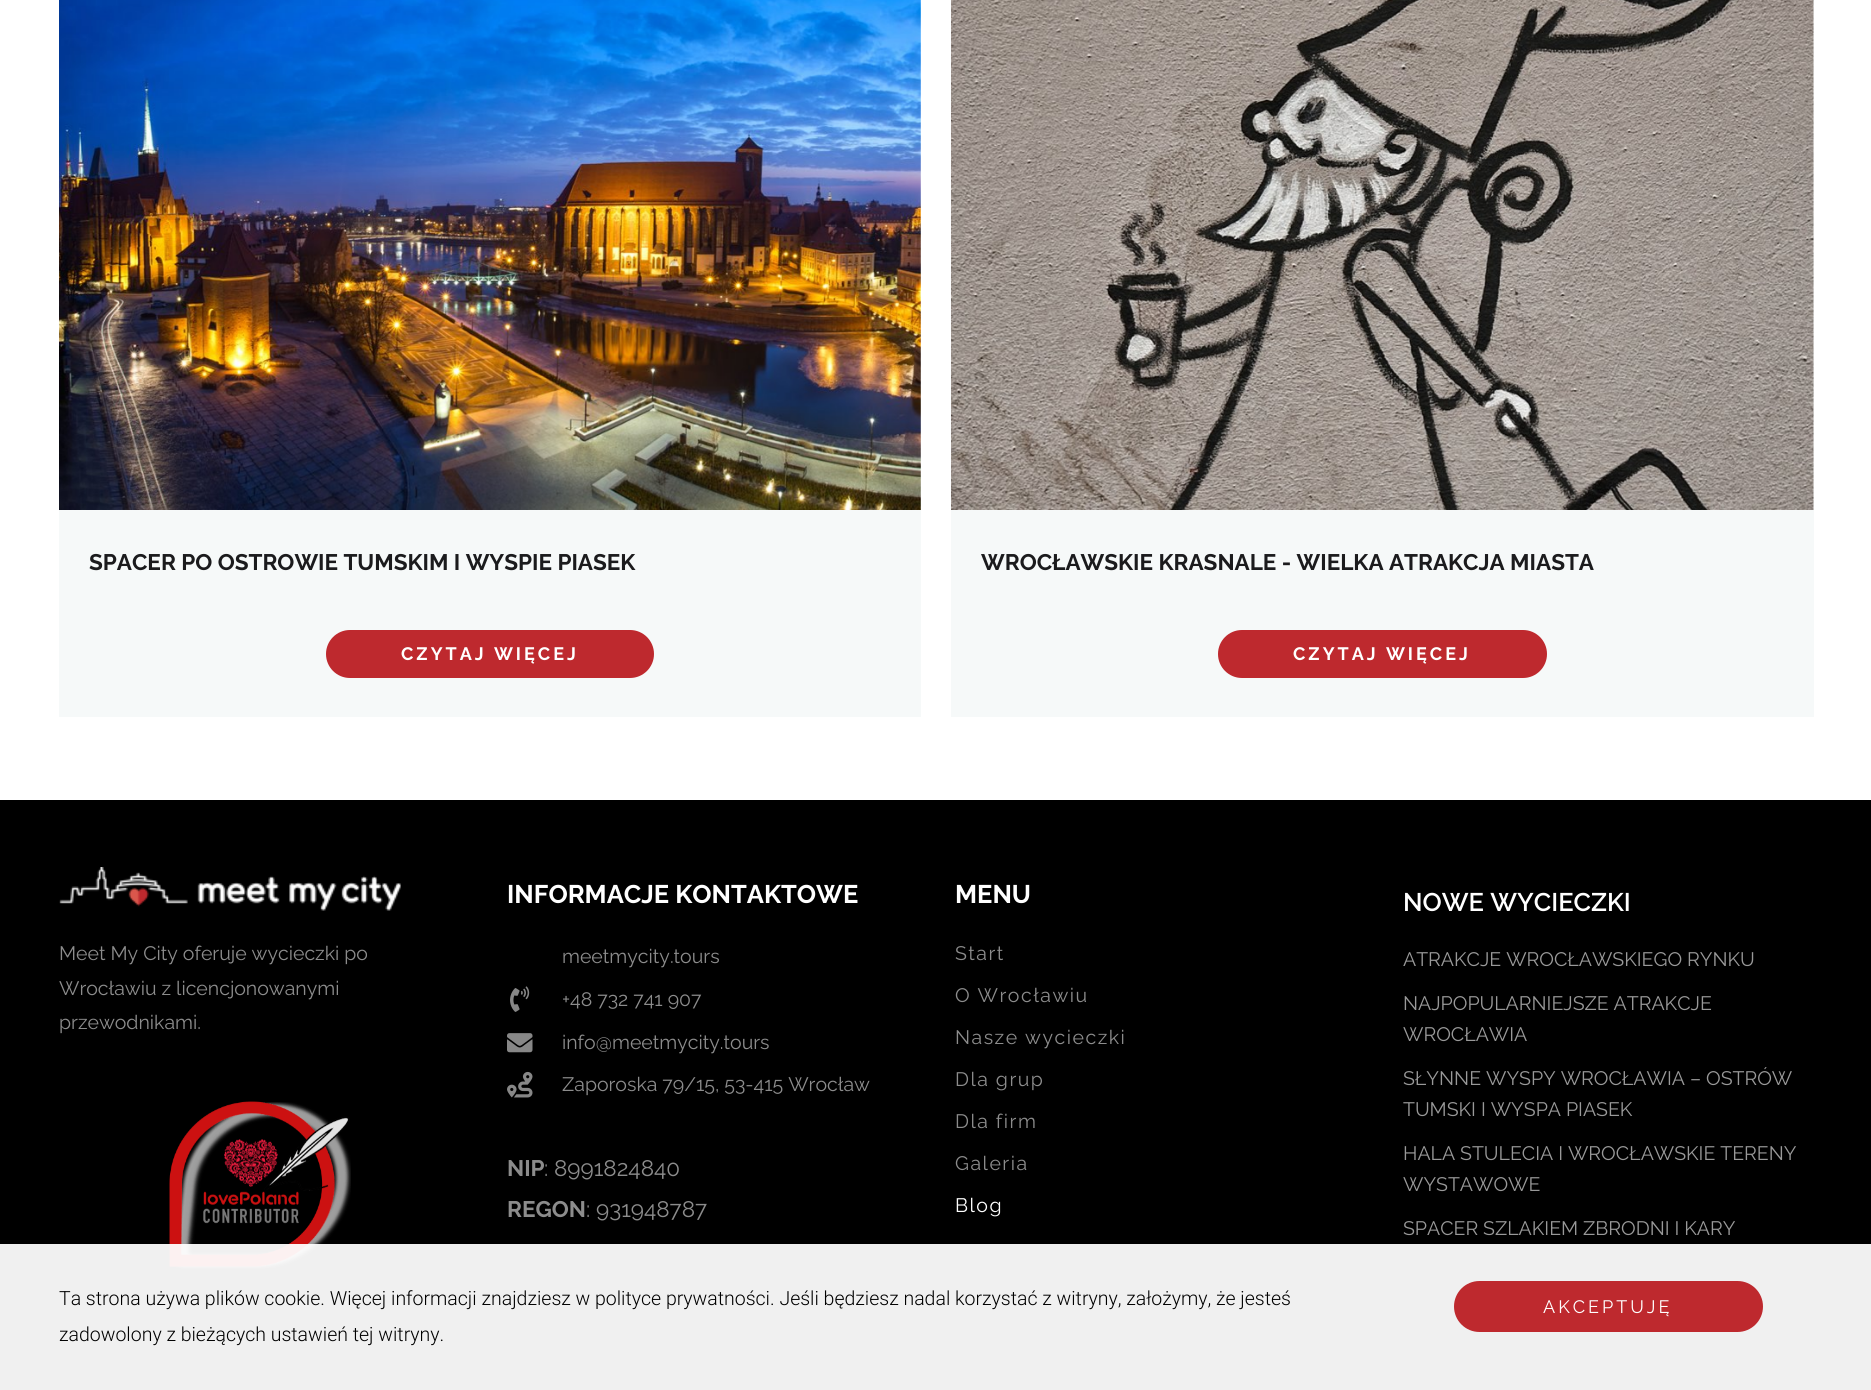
import math
import cairo


def write_spaced(ctx, x, y, s, letter, word):
	ctx.move_to(x, y)
	for ch in s:
		ctx.show_text(ch)
		ctx.rel_move_to(letter + word * (ch == ' '), 0)

def round_path(ctx, x, y, w, h, r):
	ctx.new_sub_path()
	for i, (u, v) in enumerate([(x + w - r, y + h - r), (x + r, y + h - r), (x + r, y + r), (x + w - r, y + r)]):
		ctx.arc(u, v, r, i * math.pi / 2, (i + 1) * math.pi / 2)
	ctx.close_path()

def paste(ctx, path, x, y, w, h):
	ctx.save()
	ctx.set_source_surface(cairo.ImageSurface.create_from_png(path), x, y)
	ctx.rectangle(x, y, w, h)
	ctx.fill()
	ctx.restore()

def draw(ctx):
	ctx.set_source_rgb(1, 1, 1)
	ctx.paint()
	ctx.set_source_rgb(0.961, 0.973, 0.973)
	ctx.rectangle(59, 0, 862, 717)
	ctx.fill()
	paste(ctx, 'media/1.png', 59, 0, 862, 510)
	ctx.select_font_face('Raleway', cairo.FONT_SLANT_NORMAL, cairo.FONT_WEIGHT_BOLD)
	ctx.set_font_size(22.5)
	ctx.set_source_rgb(0.106, 0.106, 0.114)
	ctx.move_to(89, 570)
	ctx.show_text('SPACER PO OSTROWIE TUMSKIM I WYSPIE PIASEK')
	ctx.set_source_rgb(0.745, 0.161, 0.18)
	round_path(ctx, 326, 630, 328, 48, 24)
	ctx.fill()
	ctx.set_font_size(18)
	ctx.set_source_rgb(1, 1, 1)
	write_spaced(ctx, 401, 660, 'CZYTAJ WIĘCEJ', 3, 0)
	ctx.set_source_rgb(0.961, 0.973, 0.973)
	ctx.rectangle(951, 0, 863, 717)
	ctx.fill()
	paste(ctx, 'media/2.png', 951, 0, 863, 510)
	ctx.set_font_size(22.5)
	ctx.set_source_rgb(0.106, 0.106, 0.114)
	ctx.move_to(981, 570)
	ctx.show_text('WROCŁAWSKIE KRASNALE - WIELKA ATRAKCJA MIASTA')
	ctx.set_source_rgb(0.745, 0.161, 0.18)
	round_path(ctx, 1218, 630, 329, 48, 24)
	ctx.fill()
	ctx.set_font_size(18)
	ctx.set_source_rgb(1, 1, 1)
	write_spaced(ctx, 1293, 660, 'CZYTAJ WIĘCEJ', 3, 0)
	ctx.set_source_rgb(0, 0, 0)
	ctx.rectangle(0, 800, 1871, 590)
	ctx.fill()
	paste(ctx, 'media/3.png', 59, 867, 342, 44)
	ctx.select_font_face('Raleway')
	ctx.set_font_size(19.5)
	ctx.set_source_rgb(0.549, 0.549, 0.549)
	for x, y, s in [
		(59, 960, 'Meet My City oferuje wycieczki po'),
		(59, 995, 'Wrocławiu z licencjonowanymi'),
		(59, 1029, 'przewodnikami.'),
	]:
		ctx.move_to(x, y)
		ctx.show_text(s)
	paste(ctx, 'media/4.png', 169, 1101, 182, 168)
	ctx.select_font_face('Raleway', cairo.FONT_SLANT_NORMAL, cairo.FONT_WEIGHT_BOLD)
	ctx.set_font_size(25.5)
	ctx.set_source_rgb(1, 1, 1)
	ctx.move_to(507, 903)
	ctx.show_text('INFORMACJE KONTAKTOWE')
	ctx.select_font_face('Raleway')
	ctx.set_font_size(19.5)
	ctx.set_source_rgb(0.549, 0.549, 0.549)
	ctx.move_to(562, 963)
	ctx.show_text('meetmycity.tours')
	paste(ctx, 'media/5.png', 510, 986, 20, 26)
	ctx.move_to(562, 1006)
	ctx.show_text('+48 732 741 907')
	paste(ctx, 'media/6.png', 507, 1033, 26, 20)
	ctx.move_to(562, 1049)
	ctx.show_text('info@meetmycity.tours')
	paste(ctx, 'media/7.png', 507, 1071, 26, 27)
	ctx.move_to(562, 1091)
	ctx.show_text('Zaporoska 79/15, 53-415 Wrocław')
	ctx.select_font_face('Raleway', cairo.FONT_SLANT_NORMAL, cairo.FONT_WEIGHT_BOLD)
	ctx.set_font_size(22.5)
	ctx.move_to(507, 1176)
	ctx.show_text('NIP')
	ctx.select_font_face('Raleway')
	ctx.move_to(544, 1176)
	ctx.show_text(': 8991824840')
	ctx.select_font_face('Raleway', cairo.FONT_SLANT_NORMAL, cairo.FONT_WEIGHT_BOLD)
	ctx.move_to(507, 1217)
	ctx.show_text('REGON')
	ctx.select_font_face('Raleway')
	ctx.move_to(586, 1217)
	ctx.show_text(': 931948787')
	ctx.select_font_face('Raleway', cairo.FONT_SLANT_NORMAL, cairo.FONT_WEIGHT_BOLD)
	ctx.set_font_size(25.5)
	ctx.set_source_rgb(1, 1, 1)
	ctx.move_to(955, 903)
	ctx.show_text('MENU')
	ctx.select_font_face('Raleway')
	ctx.set_font_size(19.5)
	ctx.set_source_rgb(0.549, 0.549, 0.549)
	for x, y, s in [
		(955, 960, 'Start'),
		(955, 1002, 'O Wrocławiu'),
		(955, 1044, 'Nasze wycieczki'),
		(955, 1086, 'Dla grup'),
		(955, 1128, 'Dla firm'),
		(955, 1170, 'Galeria'),
	]:
		write_spaced(ctx, x, y, s, 1.5, 0)
	ctx.set_source_rgb(1, 1, 1)
	write_spaced(ctx, 955, 1212, 'Blog', 1.5, 0)
	ctx.select_font_face('Raleway SemiBold')
	ctx.set_font_size(25.5)
	ctx.move_to(1403, 911)
	ctx.show_text('NOWE WYCIECZKI')
	ctx.select_font_face('Raleway')
	ctx.set_font_size(19.5)
	ctx.set_source_rgb(0.6, 0.6, 0.6)
	for x, y, s in [
		(1403, 966, 'ATRAKCJE WROCŁAWSKIEGO RYNKU'),
		(1403, 1010, 'NAJPOPULARNIEJSZE ATRAKCJE'),
		(1403, 1041, 'WROCŁAWIA'),
		(1403, 1085, 'SŁYNNE WYSPY WROCŁAWIA – OSTRÓW'),
		(1403, 1116, 'TUMSKI I WYSPA PIASEK'),
		(1403, 1160, 'HALA STULECIA I WROCŁAWSKIE TERENY'),
		(1403, 1191, 'WYSTAWOWE'),
		(1403, 1235, 'SPACER SZLAKIEM ZBRODNI I KARY'),
	]:
		ctx.move_to(x, y)
		ctx.show_text(s)
	ctx.set_source_rgba(1, 1, 1, 0.94)
	ctx.rectangle(0, 1244, 1871, 146)
	ctx.fill()
	ctx.select_font_face('Roboto Light')
	ctx.set_source_rgb(0, 0, 0)
	ctx.move_to(59, 1305)
	ctx.show_text('Ta strona używa plików cookie. Więcej informacji znajdziesz w polityce prywatności. Jeśli będziesz nadal korzystać z witryny, założymy, że jesteś')
	ctx.move_to(59, 1341)
	ctx.show_text('zadowolony z bieżących ustawień tej witryny.')
	ctx.set_source_rgb(0.745, 0.161, 0.18)
	round_path(ctx, 1454, 1281, 309, 51, 25.5)
	ctx.fill()
	ctx.select_font_face('Raleway')
	ctx.set_font_size(18)
	ctx.set_source_rgb(1, 1, 1)
	write_spaced(ctx, 1543, 1313, 'AKCEPTUJĘ', 3, 0)


surface = cairo.ImageSurface(cairo.FORMAT_RGB24, 1871, 1390)
ctx = cairo.Context(surface)
options = cairo.FontOptions()
options.set_hint_metrics(cairo.HINT_METRICS_OFF)
options.set_hint_style(cairo.HINT_STYLE_NONE)
ctx.set_font_options(options)
ctx.set_miter_limit(4)
draw(ctx)
surface.write_to_png('image.png')
